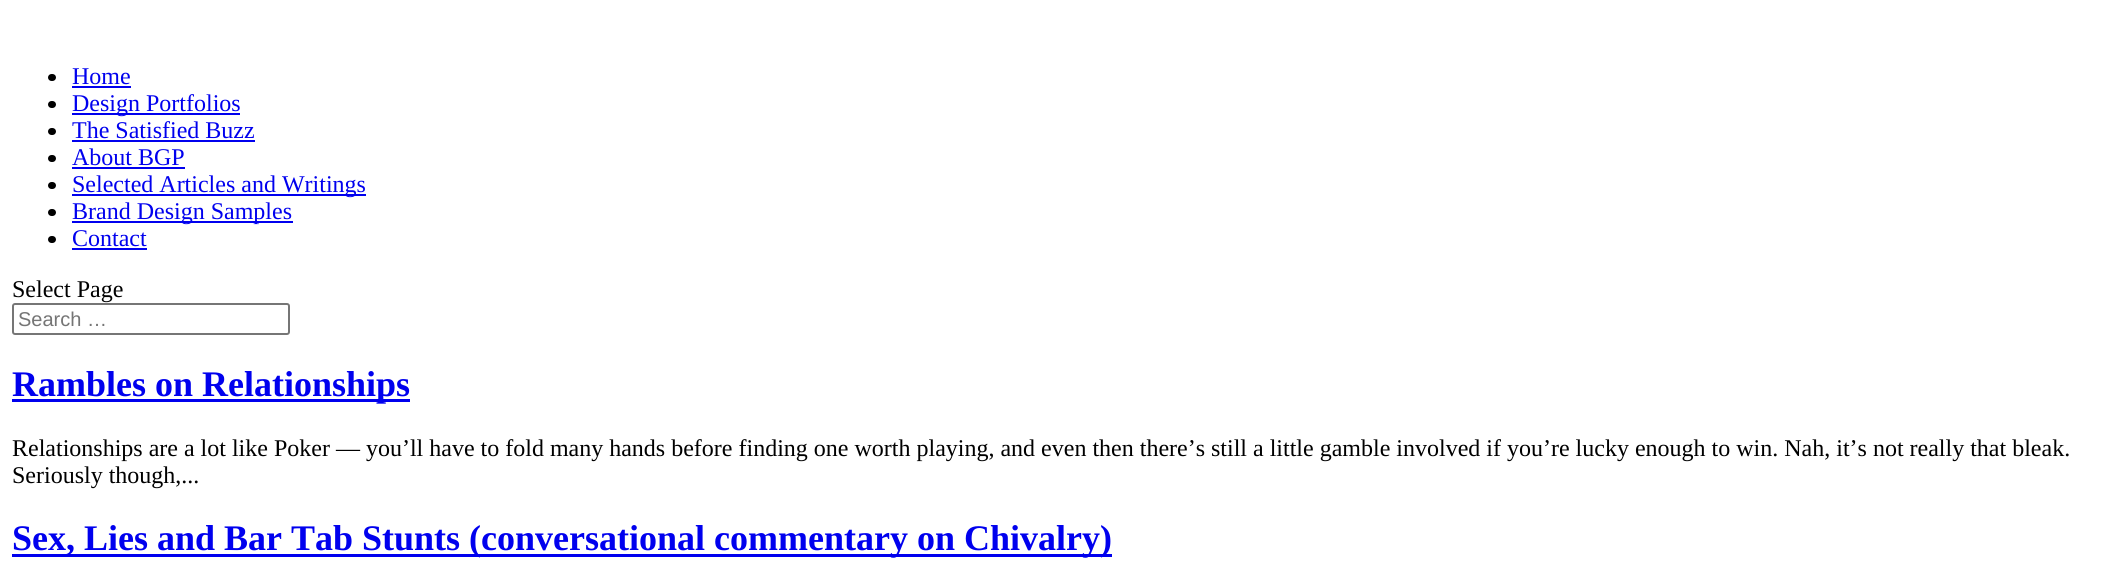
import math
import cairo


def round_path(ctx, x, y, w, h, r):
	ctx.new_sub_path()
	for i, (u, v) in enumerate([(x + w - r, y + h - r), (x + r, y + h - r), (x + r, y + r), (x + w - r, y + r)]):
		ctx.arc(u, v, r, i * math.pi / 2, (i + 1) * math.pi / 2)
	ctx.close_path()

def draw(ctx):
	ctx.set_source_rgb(1, 1, 1)
	ctx.paint()
	ctx.set_source_rgb(0, 0, 0)
	round_path(ctx, 48, 74, 8, 7, 3.5)
	ctx.fill()
	ctx.select_font_face('Liberation Serif')
	ctx.set_font_size(24)
	ctx.set_source_rgb(0, 0, 0.933)
	ctx.move_to(72, 84)
	ctx.show_text('Home')
	ctx.rectangle(72, 86, 59, 2)
	ctx.fill()
	ctx.set_source_rgb(0, 0, 0)
	round_path(ctx, 48, 101, 8, 7, 3.5)
	ctx.fill()
	ctx.set_source_rgb(0, 0, 0.933)
	ctx.rectangle(72, 113, 168, 2)
	ctx.fill()
	ctx.move_to(72, 111)
	ctx.show_text('Design Portfolios')
	ctx.set_source_rgb(0, 0, 0)
	round_path(ctx, 48, 128, 8, 7, 3.5)
	ctx.fill()
	ctx.set_source_rgb(0, 0, 0.933)
	ctx.move_to(72, 138)
	ctx.show_text('The Satisfied Buzz')
	ctx.rectangle(72, 140, 183, 2)
	ctx.fill()
	ctx.set_source_rgb(0, 0, 0)
	round_path(ctx, 48, 155, 8, 7, 3.5)
	ctx.fill()
	ctx.set_source_rgb(0, 0, 0.933)
	ctx.move_to(72, 165)
	ctx.show_text('About BGP')
	ctx.rectangle(72, 167, 113, 2)
	ctx.fill()
	ctx.set_source_rgb(0, 0, 0)
	round_path(ctx, 48, 182, 8, 7, 3.5)
	ctx.fill()
	ctx.set_source_rgb(0, 0, 0.933)
	ctx.rectangle(72, 194, 294, 2)
	ctx.fill()
	ctx.move_to(72, 192)
	ctx.show_text('Selected Articles and Writings')
	ctx.set_source_rgb(0, 0, 0)
	round_path(ctx, 48, 209, 8, 7, 3.5)
	ctx.fill()
	ctx.set_source_rgb(0, 0, 0.933)
	ctx.rectangle(72, 221, 221, 2)
	ctx.fill()
	ctx.move_to(72, 219)
	ctx.show_text('Brand Design Samples')
	ctx.set_source_rgb(0, 0, 0)
	round_path(ctx, 48, 236, 8, 7, 3.5)
	ctx.fill()
	ctx.set_source_rgb(0, 0, 0.933)
	ctx.move_to(72, 246)
	ctx.show_text('Contact')
	ctx.rectangle(72, 248, 75, 2)
	ctx.fill()
	ctx.set_source_rgb(0, 0, 0)
	ctx.move_to(12, 297)
	ctx.show_text('Select Page')
	round_path(ctx, 13, 304, 276, 30, 2)
	ctx.set_source_rgb(0.463, 0.463, 0.463)
	ctx.stroke()
	ctx.select_font_face('Liberation Sans')
	ctx.set_font_size(20)
	ctx.set_source_rgb(0.459, 0.459, 0.459)
	ctx.move_to(18, 326)
	ctx.show_text('Search …')
	ctx.set_source_rgb(0, 0, 0.933)
	ctx.rectangle(12, 399, 398, 3)
	ctx.fill()
	ctx.select_font_face('Liberation Serif', cairo.FONT_SLANT_NORMAL, cairo.FONT_WEIGHT_BOLD)
	ctx.set_font_size(36)
	ctx.move_to(12, 396)
	ctx.show_text('Rambles on Relationships')
	ctx.select_font_face('Liberation Serif')
	ctx.set_font_size(24)
	ctx.set_source_rgb(0, 0, 0)
	ctx.move_to(12, 456)
	ctx.show_text('Relationships are a lot like Poker — you’ll have to fold many hands before finding one worth playing, and even then there’s still a little gamble involved if you’re lucky enough to win. Nah, it’s not really that bleak.')
	ctx.move_to(12, 483)
	ctx.show_text('Seriously though,...')
	ctx.set_source_rgb(0, 0, 0.933)
	ctx.rectangle(12, 554, 1100, 3)
	ctx.fill()
	ctx.select_font_face('Liberation Serif', cairo.FONT_SLANT_NORMAL, cairo.FONT_WEIGHT_BOLD)
	ctx.set_font_size(36)
	ctx.move_to(12, 550)
	ctx.show_text('Sex, Lies and Bar Tab Stunts (conversational commentary on Chivalry)')


surface = cairo.ImageSurface(cairo.FORMAT_RGB24, 2107, 562)
ctx = cairo.Context(surface)
options = cairo.FontOptions()
options.set_hint_metrics(cairo.HINT_METRICS_OFF)
options.set_hint_style(cairo.HINT_STYLE_NONE)
ctx.set_font_options(options)
ctx.set_miter_limit(4)
draw(ctx)
surface.write_to_png('image.png')
